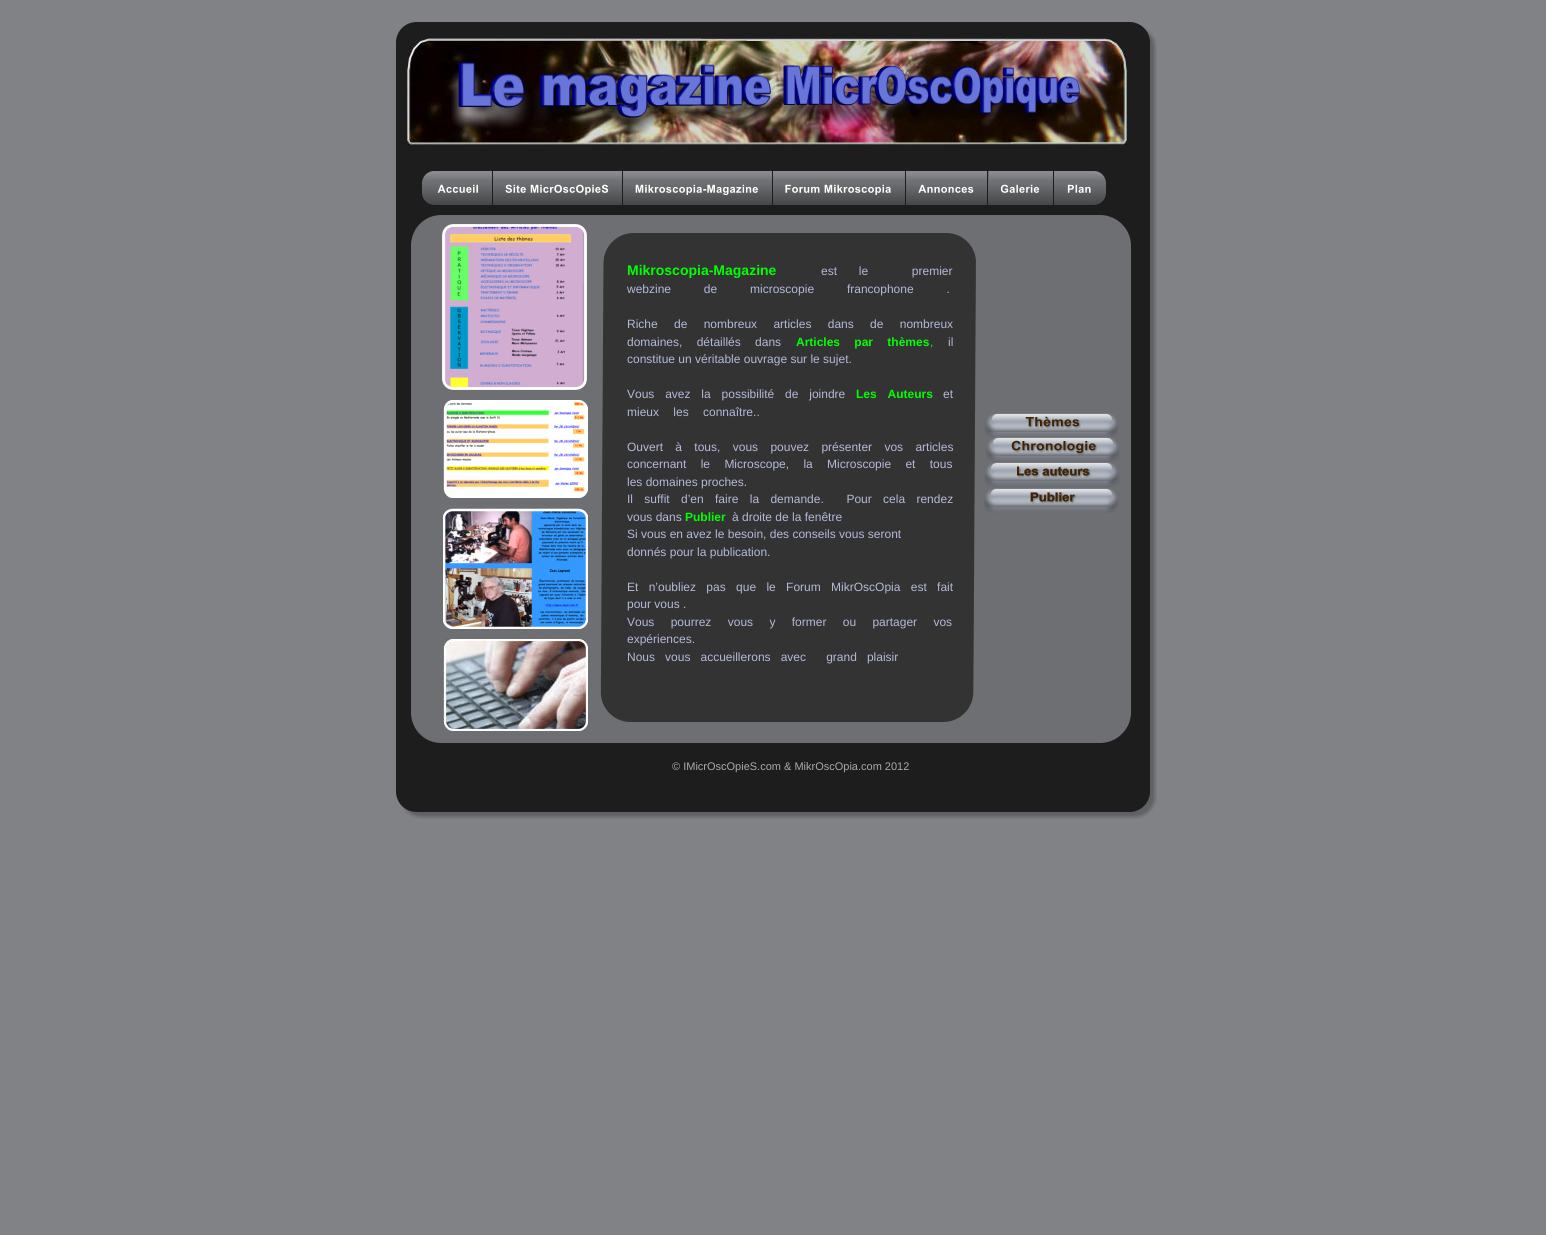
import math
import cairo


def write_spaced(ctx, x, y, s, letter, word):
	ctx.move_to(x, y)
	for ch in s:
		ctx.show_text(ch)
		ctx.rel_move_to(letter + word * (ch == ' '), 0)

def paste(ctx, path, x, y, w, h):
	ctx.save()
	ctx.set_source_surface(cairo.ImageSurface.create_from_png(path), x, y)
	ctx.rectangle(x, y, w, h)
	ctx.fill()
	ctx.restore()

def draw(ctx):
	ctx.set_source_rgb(0.502, 0.51, 0.525)
	ctx.paint()
	paste(ctx, 'media/1.png', 396, 22, 761, 797)
	paste(ctx, 'media/2.png', 407, 38, 720, 107)
	paste(ctx, 'media/3.png', 451, 62, 633, 76)
	paste(ctx, 'media/4.png', 422, 171, 70, 34)
	paste(ctx, 'media/5.png', 493, 171, 129, 34)
	paste(ctx, 'media/6.png', 623, 171, 149, 34)
	paste(ctx, 'media/7.png', 773, 171, 132, 34)
	paste(ctx, 'media/8.png', 906, 171, 81, 34)
	paste(ctx, 'media/9.png', 988, 171, 65, 34)
	paste(ctx, 'media/10.png', 1054, 171, 52, 34)
	paste(ctx, 'media/11.png', 633, 206, 503, 514)
	paste(ctx, 'media/12.png', 411, 215, 720, 528)
	paste(ctx, 'media/13.png', 442, 224, 145, 166)
	paste(ctx, 'media/14.png', 600, 233, 376, 489)
	paste(ctx, 'media/15.png', 443, 400, 145, 98)
	ctx.select_font_face('Liberation Sans', cairo.FONT_SLANT_NORMAL, cairo.FONT_WEIGHT_BOLD)
	ctx.set_font_size(14)
	ctx.set_source_rgb(0, 1, 0.012)
	ctx.move_to(627, 275)
	ctx.show_text('Mikroscopia-Magazine')
	ctx.select_font_face('Liberation Sans')
	ctx.set_font_size(12)
	ctx.set_source_rgb(0.706, 0.725, 0.851)
	write_spaced(ctx, 821, 275, 'est le  premier', 0, 18.5)
	write_spaced(ctx, 627, 293, 'webzine de microscopie francophone .', 0, 29.5)
	write_spaced(ctx, 627, 328, 'Riche de nombreux articles dans de nombreux', 0, 13)
	write_spaced(ctx, 627, 346, 'domaines, détaillés dans', 0, 11)
	ctx.select_font_face('Liberation Sans', cairo.FONT_SLANT_NORMAL, cairo.FONT_WEIGHT_BOLD)
	ctx.set_source_rgb(0, 1, 0.012)
	write_spaced(ctx, 796, 346, 'Articles par thèmes', 0, 11)
	ctx.select_font_face('Liberation Sans')
	ctx.move_to(930, 346)
	ctx.show_text(',')
	ctx.set_source_rgb(0.706, 0.725, 0.851)
	ctx.move_to(948, 346)
	ctx.show_text('il')
	ctx.move_to(627, 363)
	ctx.show_text('constitue un véritable ouvrage sur le sujet.')
	write_spaced(ctx, 627, 398, 'Vous avez la possibilité de joindre', 0, 7.5)
	ctx.select_font_face('Liberation Sans', cairo.FONT_SLANT_NORMAL, cairo.FONT_WEIGHT_BOLD)
	ctx.set_source_rgb(0, 1, 0.012)
	write_spaced(ctx, 856, 398, 'Les Auteurs', 0, 7.5)
	ctx.select_font_face('Liberation Sans')
	ctx.set_source_rgb(0.706, 0.725, 0.851)
	ctx.move_to(943, 398)
	ctx.show_text('et')
	write_spaced(ctx, 627, 416, 'mieux les connaître..', 0, 11)
	write_spaced(ctx, 627, 451, 'Ouvert à tous, vous pouvez présenter vos articles', 0, 9)
	write_spaced(ctx, 627, 468, 'concernant le Microscope, la Microscopie et tous', 0, 11)
	ctx.move_to(627, 486)
	ctx.show_text('les domaines proches.')
	write_spaced(ctx, 627, 503, 'Il suffit d’en faire la demande.  Pour cela rendez', 0, 8)
	ctx.move_to(627, 521)
	ctx.show_text('vous dans')
	ctx.select_font_face('Liberation Sans', cairo.FONT_SLANT_NORMAL, cairo.FONT_WEIGHT_BOLD)
	ctx.set_source_rgb(0, 1, 0.012)
	ctx.move_to(685, 521)
	ctx.show_text('Publier')
	ctx.select_font_face('Liberation Sans')
	ctx.set_source_rgb(0.706, 0.725, 0.851)
	for x, y, s in [
		(732, 521, 'à droite de la fenêtre'),
		(627, 538, 'Si vous en avez le besoin, des conseils vous seront'),
		(627, 556, 'donnés pour la publication.'),
	]:
		ctx.move_to(x, y)
		ctx.show_text(s)
	write_spaced(ctx, 627, 591, 'Et n’oubliez pas que le Forum MikrOscOpia est fait', 0, 7)
	ctx.move_to(627, 608)
	ctx.show_text('pour vous .')
	write_spaced(ctx, 627, 626, 'Vous pourrez vous y former ou partager vos', 0, 13)
	ctx.move_to(627, 643)
	ctx.show_text('expériences.')
	write_spaced(ctx, 627, 661, 'Nous vous accueillerons avec  grand plaisir', 0, 6.75)
	paste(ctx, 'media/16.png', 984, 413, 135, 25)
	paste(ctx, 'media/17.png', 985, 436, 135, 26)
	paste(ctx, 'media/18.png', 984, 462, 136, 25)
	paste(ctx, 'media/19.png', 983, 488, 136, 25)
	paste(ctx, 'media/20.png', 443, 508, 145, 121)
	paste(ctx, 'media/21.png', 443, 639, 145, 92)
	ctx.set_font_size(11)
	ctx.set_source_rgb(0.659, 0.671, 0.682)
	ctx.move_to(672, 770)
	ctx.show_text('© IMicrOscOpieS.com & MikrOscOpia.com 2012')


surface = cairo.ImageSurface(cairo.FORMAT_RGB24, 1546, 1235)
ctx = cairo.Context(surface)
options = cairo.FontOptions()
options.set_hint_metrics(cairo.HINT_METRICS_OFF)
options.set_hint_style(cairo.HINT_STYLE_NONE)
ctx.set_font_options(options)
ctx.set_miter_limit(4)
draw(ctx)
surface.write_to_png('image.png')
